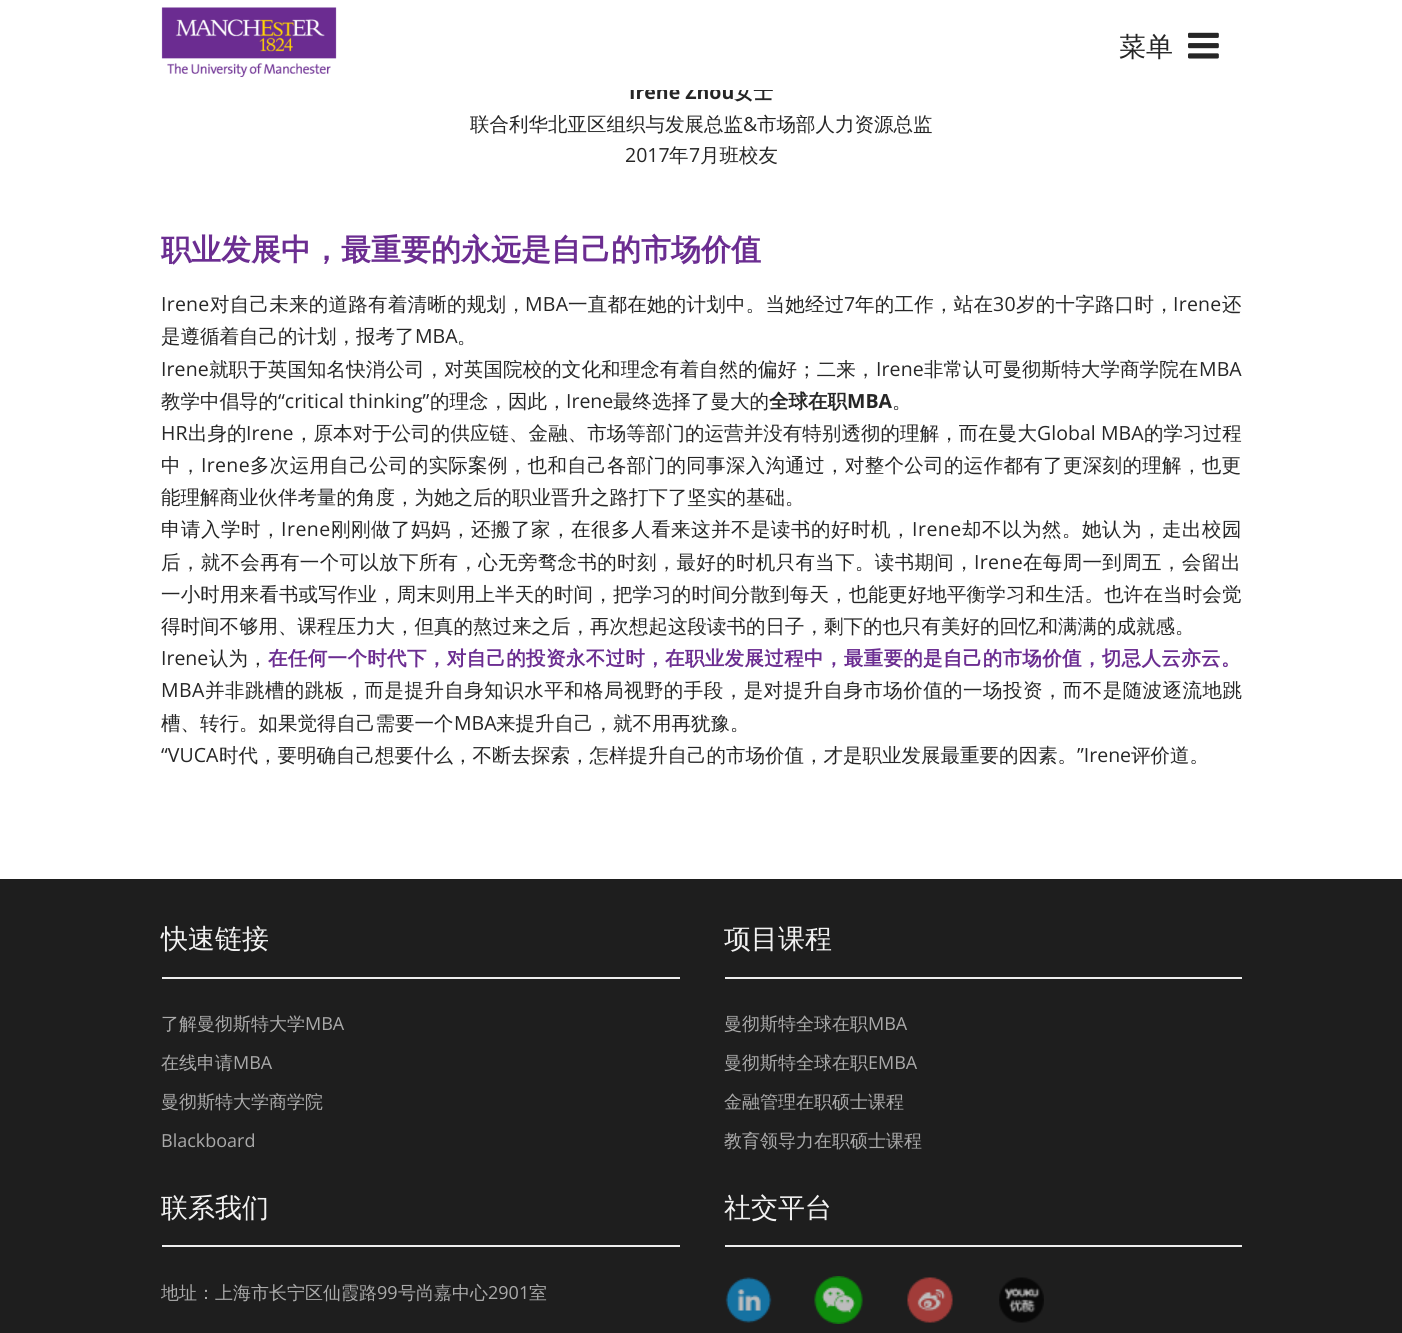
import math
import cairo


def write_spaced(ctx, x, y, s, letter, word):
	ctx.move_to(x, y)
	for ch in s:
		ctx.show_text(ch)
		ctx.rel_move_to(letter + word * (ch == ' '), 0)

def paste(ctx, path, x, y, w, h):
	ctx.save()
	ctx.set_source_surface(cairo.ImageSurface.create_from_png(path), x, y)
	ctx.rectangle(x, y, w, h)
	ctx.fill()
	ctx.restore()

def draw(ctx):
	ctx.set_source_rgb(1, 1, 1)
	ctx.paint()
	ctx.select_font_face('Open Sans', cairo.FONT_SLANT_NORMAL, cairo.FONT_WEIGHT_BOLD)
	ctx.set_font_size(19.5)
	ctx.set_source_rgb(0.149, 0.149, 0.149)
	ctx.move_to(629, 99)
	ctx.show_text('Irene Zhou')
	ctx.select_font_face('WenQuanYi Zen Hei', cairo.FONT_SLANT_NORMAL, cairo.FONT_WEIGHT_BOLD)
	ctx.move_to(734, 99)
	ctx.show_text('女士')
	ctx.set_source_rgb(1, 1, 1)
	ctx.rectangle(630, 82, 143, 8)
	ctx.fill()
	paste(ctx, 'media/1.png', 161, 7, 176, 70)
	ctx.select_font_face('WenQuanYi Zen Hei Medium')
	ctx.set_font_size(27)
	ctx.set_source_rgb(0.149, 0.149, 0.149)
	ctx.move_to(1119, 56)
	ctx.show_text('菜单')
	paste(ctx, 'media/2.png', 1188, 32, 31, 27)
	ctx.set_font_size(19.5)
	ctx.move_to(470, 131)
	ctx.show_text('联合利华北亚区组织与发展总监')
	ctx.select_font_face('Open Sans')
	ctx.move_to(743, 131)
	ctx.show_text('&')
	ctx.select_font_face('WenQuanYi Zen Hei Medium')
	ctx.move_to(757, 131)
	ctx.show_text('市场部人力资源总监')
	ctx.select_font_face('Open Sans')
	ctx.move_to(625, 162)
	ctx.show_text('2017')
	ctx.select_font_face('WenQuanYi Zen Hei Medium')
	ctx.move_to(669, 162)
	ctx.show_text('年')
	ctx.select_font_face('Open Sans')
	ctx.move_to(689, 162)
	ctx.show_text('7')
	ctx.select_font_face('WenQuanYi Zen Hei Medium')
	ctx.move_to(700, 162)
	ctx.show_text('月班校友')
	ctx.select_font_face('WenQuanYi Zen Hei', cairo.FONT_SLANT_NORMAL, cairo.FONT_WEIGHT_BOLD)
	ctx.set_font_size(30)
	ctx.set_source_rgb(0.42, 0.176, 0.569)
	ctx.move_to(161, 260)
	ctx.show_text('职业发展中，最重要的永远是自己的市场价值')
	ctx.select_font_face('Open Sans')
	ctx.set_font_size(19.5)
	ctx.set_source_rgb(0.149, 0.149, 0.149)
	write_spaced(ctx, 161, 311, 'Irene', 0.25, 0)
	ctx.select_font_face('WenQuanYi Zen Hei Medium')
	write_spaced(ctx, 210, 311, '对自己未来的道路有着清晰的规划，', 0.25, 0)
	ctx.select_font_face('Open Sans')
	write_spaced(ctx, 525, 311, 'MBA', 0.25, 0)
	ctx.select_font_face('WenQuanYi Zen Hei Medium')
	write_spaced(ctx, 568, 311, '一直都在她的计划中。当她经过', 0.25, 0)
	ctx.select_font_face('Open Sans')
	write_spaced(ctx, 844, 311, '7', 0.25, 0)
	ctx.select_font_face('WenQuanYi Zen Hei Medium')
	write_spaced(ctx, 855, 311, '年的工作，站在', 0.25, 0)
	ctx.select_font_face('Open Sans')
	write_spaced(ctx, 993, 311, '30', 0.25, 0)
	ctx.select_font_face('WenQuanYi Zen Hei Medium')
	write_spaced(ctx, 1016, 311, '岁的十字路口时，', 0.25, 0)
	ctx.select_font_face('Open Sans')
	write_spaced(ctx, 1173, 311, 'Irene', 0.25, 0)
	ctx.select_font_face('WenQuanYi Zen Hei Medium')
	write_spaced(ctx, 1222, 311, '还', 0.25, 0)
	ctx.move_to(161, 343)
	ctx.show_text('是遵循着自己的计划，报考了')
	ctx.select_font_face('Open Sans')
	ctx.move_to(415, 343)
	ctx.show_text('MBA')
	ctx.select_font_face('WenQuanYi Zen Hei Medium')
	ctx.move_to(457, 343)
	ctx.show_text('。')
	ctx.select_font_face('Open Sans')
	write_spaced(ctx, 161, 376, 'Irene', 0.1, 0)
	ctx.select_font_face('WenQuanYi Zen Hei Medium')
	write_spaced(ctx, 209, 376, '就职于英国知名快消公司，对英国院校的文化和理念有着自然的偏好；二来，', 0.1, 0)
	ctx.select_font_face('Open Sans')
	write_spaced(ctx, 876, 376, 'Irene', 0.1, 0)
	ctx.select_font_face('WenQuanYi Zen Hei Medium')
	write_spaced(ctx, 924, 376, '非常认可曼彻斯特大学商学院在', 0.1, 0)
	ctx.select_font_face('Open Sans')
	write_spaced(ctx, 1199, 376, 'MBA', 0.1, 0)
	ctx.select_font_face('WenQuanYi Zen Hei Medium')
	ctx.move_to(161, 408)
	ctx.show_text('教学中倡导的')
	ctx.select_font_face('Open Sans')
	ctx.move_to(278, 408)
	ctx.show_text('“critical thinking”')
	ctx.select_font_face('WenQuanYi Zen Hei Medium')
	ctx.move_to(430, 408)
	ctx.show_text('的理念，因此，')
	ctx.select_font_face('Open Sans')
	ctx.move_to(566, 408)
	ctx.show_text('Irene')
	ctx.select_font_face('WenQuanYi Zen Hei Medium')
	ctx.move_to(613, 408)
	ctx.show_text('最终选择了曼大的')
	ctx.select_font_face('WenQuanYi Zen Hei', cairo.FONT_SLANT_NORMAL, cairo.FONT_WEIGHT_BOLD)
	ctx.move_to(769, 408)
	ctx.show_text('全球在职')
	ctx.select_font_face('Open Sans', cairo.FONT_SLANT_NORMAL, cairo.FONT_WEIGHT_BOLD)
	ctx.move_to(847, 408)
	ctx.show_text('MBA')
	ctx.select_font_face('WenQuanYi Zen Hei Medium')
	ctx.move_to(892, 408)
	ctx.show_text('。')
	ctx.select_font_face('Open Sans')
	write_spaced(ctx, 161, 440, 'HR', 0.05, 0)
	ctx.select_font_face('WenQuanYi Zen Hei Medium')
	write_spaced(ctx, 188, 440, '出身的', 0.05, 0)
	ctx.select_font_face('Open Sans')
	write_spaced(ctx, 246, 440, 'Irene', 0.05, 0)
	ctx.select_font_face('WenQuanYi Zen Hei Medium')
	write_spaced(ctx, 294, 440, '，原本对于公司的供应链、金融、市场等部门的运营并没有特别透彻的理解，而在曼大', 0.05, 0)
	ctx.select_font_face('Open Sans')
	write_spaced(ctx, 1037, 440, 'Global MBA', 0.05, 0)
	ctx.select_font_face('WenQuanYi Zen Hei Medium')
	write_spaced(ctx, 1144, 440, '的学习过程', 0.05, 0)
	write_spaced(ctx, 161, 472, '中，', 0.33, 0)
	ctx.select_font_face('Open Sans')
	write_spaced(ctx, 201, 472, 'Irene', 0.33, 0)
	ctx.select_font_face('WenQuanYi Zen Hei Medium')
	write_spaced(ctx, 250, 472, '多次运用自己公司的实际案例，也和自己各部门的同事深入沟通过，对整个公司的运作都有了更深刻的理解，也更', 0.33, 0)
	ctx.move_to(161, 504)
	ctx.show_text('能理解商业伙伴考量的角度，为她之后的职业晋升之路打下了坚实的基础。')
	write_spaced(ctx, 161, 536, '申请入学时，', 0.5, 0)
	ctx.select_font_face('Open Sans')
	write_spaced(ctx, 281, 536, 'Irene', 0.5, 0)
	ctx.select_font_face('WenQuanYi Zen Hei Medium')
	write_spaced(ctx, 331, 536, '刚刚做了妈妈，还搬了家，在很多人看来这并不是读书的好时机，', 0.5, 0)
	ctx.select_font_face('Open Sans')
	write_spaced(ctx, 912, 536, 'Irene', 0.5, 0)
	ctx.select_font_face('WenQuanYi Zen Hei Medium')
	write_spaced(ctx, 962, 536, '却不以为然。她认为，走出校园', 0.5, 0)
	write_spaced(ctx, 161, 569, '后，就不会再有一个可以放下所有，心无旁骛念书的时刻，最好的时机只有当下。读书期间，', 0.33, 0)
	ctx.select_font_face('Open Sans')
	write_spaced(ctx, 974, 569, 'Irene', 0.33, 0)
	ctx.select_font_face('WenQuanYi Zen Hei Medium')
	write_spaced(ctx, 1023, 569, '在每周一到周五，会留出', 0.33, 0)
	write_spaced(ctx, 161, 601, '一小时用来看书或写作业，周末则用上半天的时间，把学习的时间分散到每天，也能更好地平衡学习和生活。也许在当时会觉', 0.15, 0)
	ctx.move_to(161, 633)
	ctx.show_text('得时间不够用、课程压力大，但真的熬过来之后，再次想起这段读书的日子，剩下的也只有美好的回忆和满满的成就感。')
	ctx.select_font_face('Open Sans')
	ctx.move_to(161, 665)
	ctx.show_text('Irene')
	ctx.select_font_face('WenQuanYi Zen Hei Medium')
	ctx.move_to(209, 665)
	ctx.show_text('认为，')
	ctx.select_font_face('WenQuanYi Zen Hei', cairo.FONT_SLANT_NORMAL, cairo.FONT_WEIGHT_BOLD)
	ctx.set_source_rgb(0.42, 0.176, 0.569)
	write_spaced(ctx, 268, 665, '在任何一个时代下，对自己的投资永不过时，在职业发展过程中，最重要的是自己的市场价值，切忌人云亦云。', 0.35, 0)
	ctx.select_font_face('Open Sans')
	ctx.set_source_rgb(0.149, 0.149, 0.149)
	write_spaced(ctx, 161, 697, 'MBA', 0.45, 0)
	ctx.select_font_face('WenQuanYi Zen Hei Medium')
	write_spaced(ctx, 205, 697, '并非跳槽的跳板，而是提升自身知识水平和格局视野的手段，是对提升自身市场价值的一场投资，而不是随波逐流地跳', 0.45, 0)
	ctx.move_to(161, 730)
	ctx.show_text('槽、转行。如果觉得自己需要一个')
	ctx.select_font_face('Open Sans')
	ctx.move_to(454, 730)
	ctx.show_text('MBA')
	ctx.select_font_face('WenQuanYi Zen Hei Medium')
	ctx.move_to(496, 730)
	ctx.show_text('来提升自己，就不用再犹豫。')
	ctx.select_font_face('Open Sans')
	ctx.move_to(161, 762)
	ctx.show_text('“VUCA')
	ctx.select_font_face('WenQuanYi Zen Hei Medium')
	ctx.move_to(219, 762)
	ctx.show_text('时代，要明确自己想要什么，不断去探索，怎样提升自己的市场价值，才是职业发展最重要的因素。')
	ctx.select_font_face('Open Sans')
	ctx.move_to(1077, 762)
	ctx.show_text('”Irene')
	ctx.select_font_face('WenQuanYi Zen Hei Medium')
	ctx.move_to(1131, 762)
	ctx.show_text('评价道。')
	ctx.set_source_rgb(0.118, 0.118, 0.118)
	ctx.rectangle(0, 879, 1402, 454)
	ctx.fill()
	ctx.set_source_rgb(0.933, 0.933, 0.933)
	ctx.rectangle(162, 977, 518, 2)
	ctx.fill()
	ctx.set_font_size(27)
	ctx.set_source_rgb(0.949, 0.949, 0.949)
	ctx.move_to(161, 948)
	ctx.show_text('快速链接')
	ctx.set_font_size(18)
	ctx.set_source_rgb(0.667, 0.667, 0.667)
	ctx.move_to(161, 1030)
	ctx.show_text('了解曼彻斯特大学')
	ctx.select_font_face('Open Sans')
	ctx.move_to(305, 1030)
	ctx.show_text('MBA')
	ctx.select_font_face('WenQuanYi Zen Hei Medium')
	ctx.move_to(161, 1069)
	ctx.show_text('在线申请')
	ctx.select_font_face('Open Sans')
	ctx.move_to(233, 1069)
	ctx.show_text('MBA')
	ctx.select_font_face('WenQuanYi Zen Hei Medium')
	ctx.move_to(161, 1108)
	ctx.show_text('曼彻斯特大学商学院')
	ctx.select_font_face('Open Sans')
	ctx.move_to(161, 1147)
	ctx.show_text('Blackboard')
	ctx.set_source_rgb(0.933, 0.933, 0.933)
	ctx.rectangle(725, 977, 517, 2)
	ctx.fill()
	ctx.select_font_face('WenQuanYi Zen Hei Medium')
	ctx.set_font_size(27)
	ctx.set_source_rgb(0.949, 0.949, 0.949)
	ctx.move_to(724, 948)
	ctx.show_text('项目课程')
	ctx.set_font_size(18)
	ctx.set_source_rgb(0.667, 0.667, 0.667)
	ctx.move_to(724, 1030)
	ctx.show_text('曼彻斯特全球在职')
	ctx.select_font_face('Open Sans')
	ctx.move_to(868, 1030)
	ctx.show_text('MBA')
	ctx.select_font_face('WenQuanYi Zen Hei Medium')
	ctx.move_to(724, 1069)
	ctx.show_text('曼彻斯特全球在职')
	ctx.select_font_face('Open Sans')
	ctx.move_to(868, 1069)
	ctx.show_text('EMBA')
	ctx.select_font_face('WenQuanYi Zen Hei Medium')
	ctx.move_to(724, 1108)
	ctx.show_text('金融管理在职硕士课程')
	ctx.move_to(724, 1147)
	ctx.show_text('教育领导力在职硕士课程')
	ctx.set_source_rgb(0.933, 0.933, 0.933)
	ctx.rectangle(162, 1245, 518, 2)
	ctx.fill()
	ctx.set_font_size(27)
	ctx.set_source_rgb(0.949, 0.949, 0.949)
	ctx.move_to(161, 1217)
	ctx.show_text('联系我们')
	ctx.set_font_size(18)
	ctx.set_source_rgb(0.667, 0.667, 0.667)
	ctx.move_to(161, 1299)
	ctx.show_text('地址：上海市长宁区仙霞路')
	ctx.select_font_face('Open Sans')
	ctx.move_to(377, 1299)
	ctx.show_text('99')
	ctx.select_font_face('WenQuanYi Zen Hei Medium')
	ctx.move_to(398, 1299)
	ctx.show_text('号尚嘉中心')
	ctx.select_font_face('Open Sans')
	ctx.move_to(488, 1299)
	ctx.show_text('2901')
	ctx.select_font_face('WenQuanYi Zen Hei Medium')
	ctx.move_to(529, 1299)
	ctx.show_text('室')
	ctx.set_source_rgb(0.933, 0.933, 0.933)
	ctx.rectangle(725, 1245, 517, 2)
	ctx.fill()
	ctx.set_font_size(27)
	ctx.set_source_rgb(0.949, 0.949, 0.949)
	ctx.move_to(724, 1217)
	ctx.show_text('社交平台')
	paste(ctx, 'media/3.png', 725, 1277, 47, 46)
	paste(ctx, 'media/4.png', 814, 1276, 49, 48)
	paste(ctx, 'media/5.png', 907, 1277, 46, 46)
	paste(ctx, 'media/6.png', 999, 1277, 45, 46)


surface = cairo.ImageSurface(cairo.FORMAT_RGB24, 1402, 1333)
ctx = cairo.Context(surface)
options = cairo.FontOptions()
options.set_hint_metrics(cairo.HINT_METRICS_OFF)
options.set_hint_style(cairo.HINT_STYLE_NONE)
ctx.set_font_options(options)
ctx.set_miter_limit(4)
draw(ctx)
surface.write_to_png('image.png')
